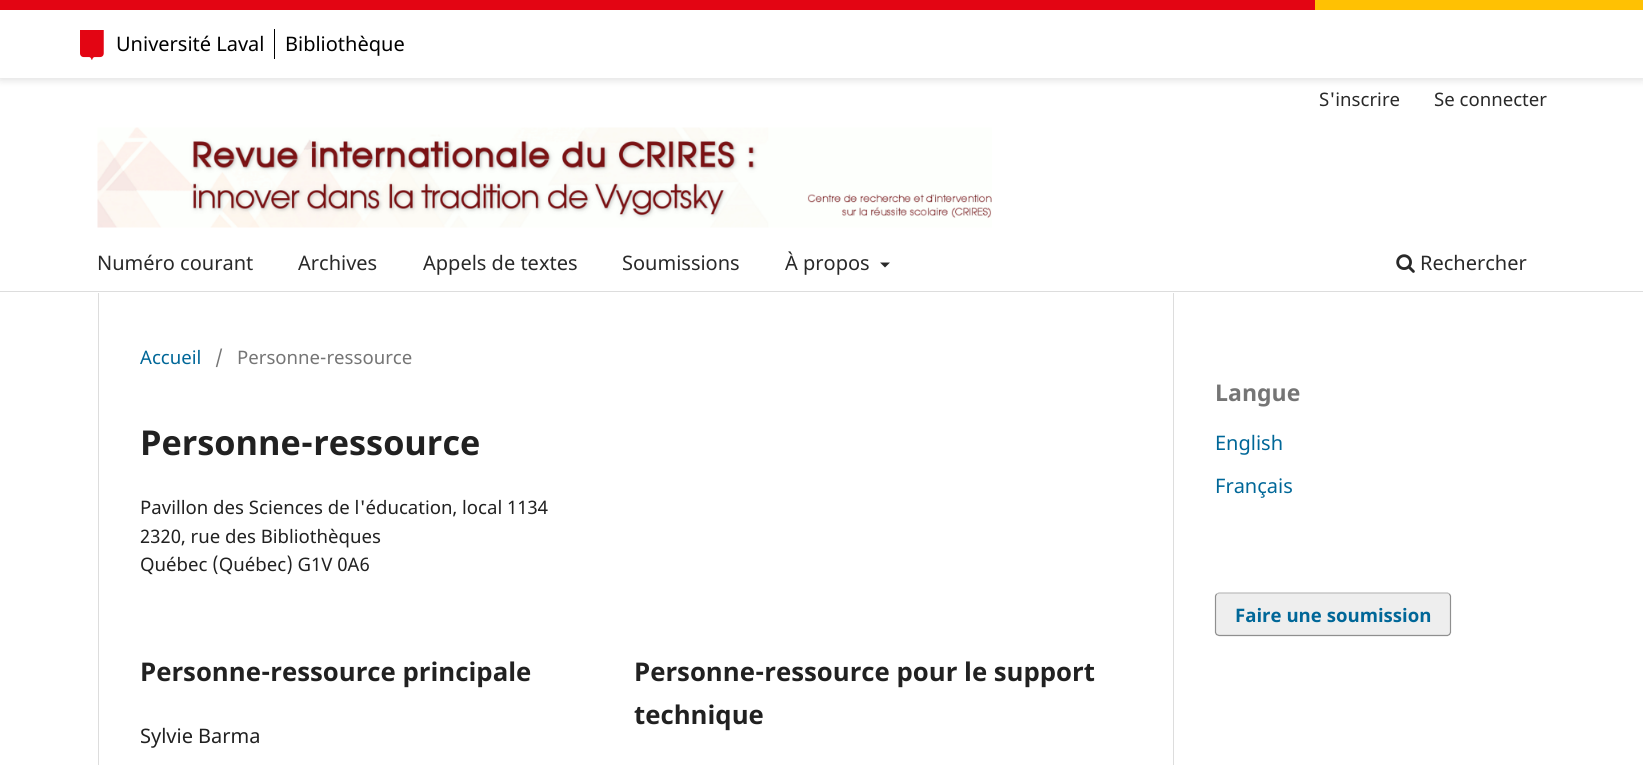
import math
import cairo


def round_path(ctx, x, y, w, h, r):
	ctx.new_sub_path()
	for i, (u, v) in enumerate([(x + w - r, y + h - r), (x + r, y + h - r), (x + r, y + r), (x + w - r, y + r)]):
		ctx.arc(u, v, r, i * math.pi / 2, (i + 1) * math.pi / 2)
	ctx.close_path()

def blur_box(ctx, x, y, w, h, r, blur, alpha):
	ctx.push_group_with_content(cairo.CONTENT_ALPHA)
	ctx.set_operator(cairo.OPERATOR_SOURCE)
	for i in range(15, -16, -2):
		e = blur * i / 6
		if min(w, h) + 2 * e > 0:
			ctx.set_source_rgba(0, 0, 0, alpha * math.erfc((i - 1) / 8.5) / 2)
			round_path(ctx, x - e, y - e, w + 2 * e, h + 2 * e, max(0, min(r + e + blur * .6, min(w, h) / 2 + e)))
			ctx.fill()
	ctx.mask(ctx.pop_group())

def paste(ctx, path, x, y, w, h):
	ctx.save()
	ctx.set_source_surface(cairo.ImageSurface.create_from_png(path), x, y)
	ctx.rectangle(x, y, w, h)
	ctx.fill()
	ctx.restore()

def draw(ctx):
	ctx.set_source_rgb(1, 1, 1)
	ctx.paint()
	ctx.set_source_rgb(0, 0, 0)
	blur_box(ctx, 0, 1, 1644, 78, 0, 4.5, 0.15)
	ctx.set_source_rgb(0.89, 0.02, 0.075)
	ctx.rectangle(0, 0, 1315, 10)
	ctx.fill()
	ctx.set_source_rgb(1, 0.757, 0.012)
	ctx.rectangle(1315, 0, 328, 10)
	ctx.fill()
	ctx.set_source_rgb(1, 1, 1)
	ctx.rectangle(0, 10, 1643, 68)
	ctx.fill()
	paste(ctx, 'media/1.png', 80, 30, 24, 30)
	ctx.select_font_face('Noto Sans')
	ctx.set_font_size(20)
	ctx.set_source_rgb(0, 0, 0)
	ctx.move_to(116, 51)
	ctx.show_text('Université Laval')
	ctx.rectangle(274, 29, 1, 30)
	ctx.fill()
	ctx.move_to(285, 51)
	ctx.show_text('Bibliothèque')
	ctx.set_source_rgb(0.867, 0.867, 0.867)
	ctx.rectangle(0, 291, 1643, 1)
	ctx.fill()
	ctx.set_font_size(18.6)
	ctx.set_source_rgb(0.161, 0.161, 0.161)
	ctx.move_to(1319, 106)
	ctx.show_text('S\'inscrire')
	ctx.move_to(1434, 106)
	ctx.show_text('Se connecter')
	ctx.set_font_size(20)
	for x, y, s in [
		(97, 270, 'Numéro courant'),
		(298, 270, 'Archives'),
		(423, 270, 'Appels de textes'),
		(622, 270, 'Soumissions'),
		(785, 270, 'À propos'),
	]:
		ctx.move_to(x, y)
		ctx.show_text(s)
	ctx.new_path()
	ctx.move_to(880, 262.5)
	ctx.line_to(890, 262.5)
	ctx.line_to(885, 267.5)
	ctx.close_path()
	ctx.fill()
	paste(ctx, 'media/2.png', 1396, 254, 19, 19)
	ctx.move_to(1420, 270)
	ctx.show_text('Rechercher')
	paste(ctx, 'media/3.png', 97, 127, 895, 101)
	ctx.set_source_rgb(0.867, 0.867, 0.867)
	ctx.rectangle(98, 293, 1, 472)
	ctx.fill()
	ctx.set_font_size(18.6)
	ctx.set_source_rgb(0, 0.404, 0.596)
	ctx.move_to(140, 364)
	ctx.show_text('Accueil')
	ctx.set_source_rgb(0.459, 0.459, 0.459)
	ctx.move_to(215, 364)
	ctx.show_text('/')
	ctx.move_to(237, 364)
	ctx.show_text('Personne-ressource')
	ctx.select_font_face('Noto Sans', cairo.FONT_SLANT_NORMAL, cairo.FONT_WEIGHT_BOLD)
	ctx.set_font_size(34.25)
	ctx.set_source_rgb(0.129, 0.129, 0.129)
	ctx.move_to(140, 455)
	ctx.show_text('Personne-ressource')
	ctx.select_font_face('Noto Sans')
	ctx.set_font_size(18.6)
	for x, y, s in [
		(140, 514, 'Pavillon des Sciences de l\'éducation, local 1134'),
		(140, 543, '2320, rue des Bibliothèques'),
		(140, 571, 'Québec (Québec) G1V 0A6'),
	]:
		ctx.move_to(x, y)
		ctx.show_text(s)
	ctx.select_font_face('Noto Sans', cairo.FONT_SLANT_NORMAL, cairo.FONT_WEIGHT_BOLD)
	ctx.set_font_size(25.75)
	ctx.move_to(140, 681)
	ctx.show_text('Personne-ressource principale')
	ctx.select_font_face('Noto Sans')
	ctx.set_font_size(20)
	ctx.move_to(140, 743)
	ctx.show_text('Sylvie Barma')
	ctx.select_font_face('Noto Sans', cairo.FONT_SLANT_NORMAL, cairo.FONT_WEIGHT_BOLD)
	ctx.set_font_size(25.75)
	ctx.move_to(634, 681)
	ctx.show_text('Personne-ressource pour le support')
	ctx.move_to(634, 724)
	ctx.show_text('technique')
	ctx.set_source_rgb(0.867, 0.867, 0.867)
	ctx.rectangle(1173, 293, 1, 472)
	ctx.fill()
	ctx.set_font_size(23)
	ctx.set_source_rgb(0.459, 0.459, 0.459)
	ctx.move_to(1215, 401)
	ctx.show_text('Langue')
	ctx.select_font_face('Noto Sans')
	ctx.set_font_size(20)
	ctx.set_source_rgb(0, 0.404, 0.596)
	ctx.move_to(1215, 450)
	ctx.show_text('English')
	ctx.move_to(1215, 493)
	ctx.show_text('Français')
	ctx.set_source_rgb(0.933, 0.933, 0.933)
	round_path(ctx, 1215, 593, 236, 43, 4)
	ctx.fill()
	ctx.new_path()
	ctx.move_to(1216.5, 594)
	ctx.line_to(1219, 593)
	ctx.line_to(1447.5, 593)
	ctx.line_to(1449.5, 594)
	ctx.set_source_rgb(0.733, 0.733, 0.733)
	ctx.set_line_width(1.2)
	ctx.stroke()
	ctx.new_path()
	ctx.move_to(1449.5, 594)
	ctx.line_to(1450.5, 596)
	ctx.line_to(1450.5, 632.5)
	ctx.line_to(1449.5, 634.5)
	ctx.line_to(1447.5, 635.5)
	ctx.line_to(1219, 635.5)
	ctx.line_to(1216.5, 634.5)
	ctx.line_to(1215.5, 632.5)
	ctx.line_to(1215.5, 596)
	ctx.line_to(1216.5, 594)
	ctx.set_source_rgba(0, 0, 0, 0.4)
	ctx.stroke()
	ctx.select_font_face('Noto Sans', cairo.FONT_SLANT_NORMAL, cairo.FONT_WEIGHT_BOLD)
	ctx.set_font_size(18.6)
	ctx.set_source_rgb(0, 0.404, 0.596)
	ctx.move_to(1235, 622)
	ctx.show_text('Faire une soumission')


surface = cairo.ImageSurface(cairo.FORMAT_RGB24, 1643, 765)
ctx = cairo.Context(surface)
options = cairo.FontOptions()
options.set_hint_metrics(cairo.HINT_METRICS_OFF)
options.set_hint_style(cairo.HINT_STYLE_NONE)
ctx.set_font_options(options)
ctx.set_miter_limit(4)
draw(ctx)
surface.write_to_png('image.png')
